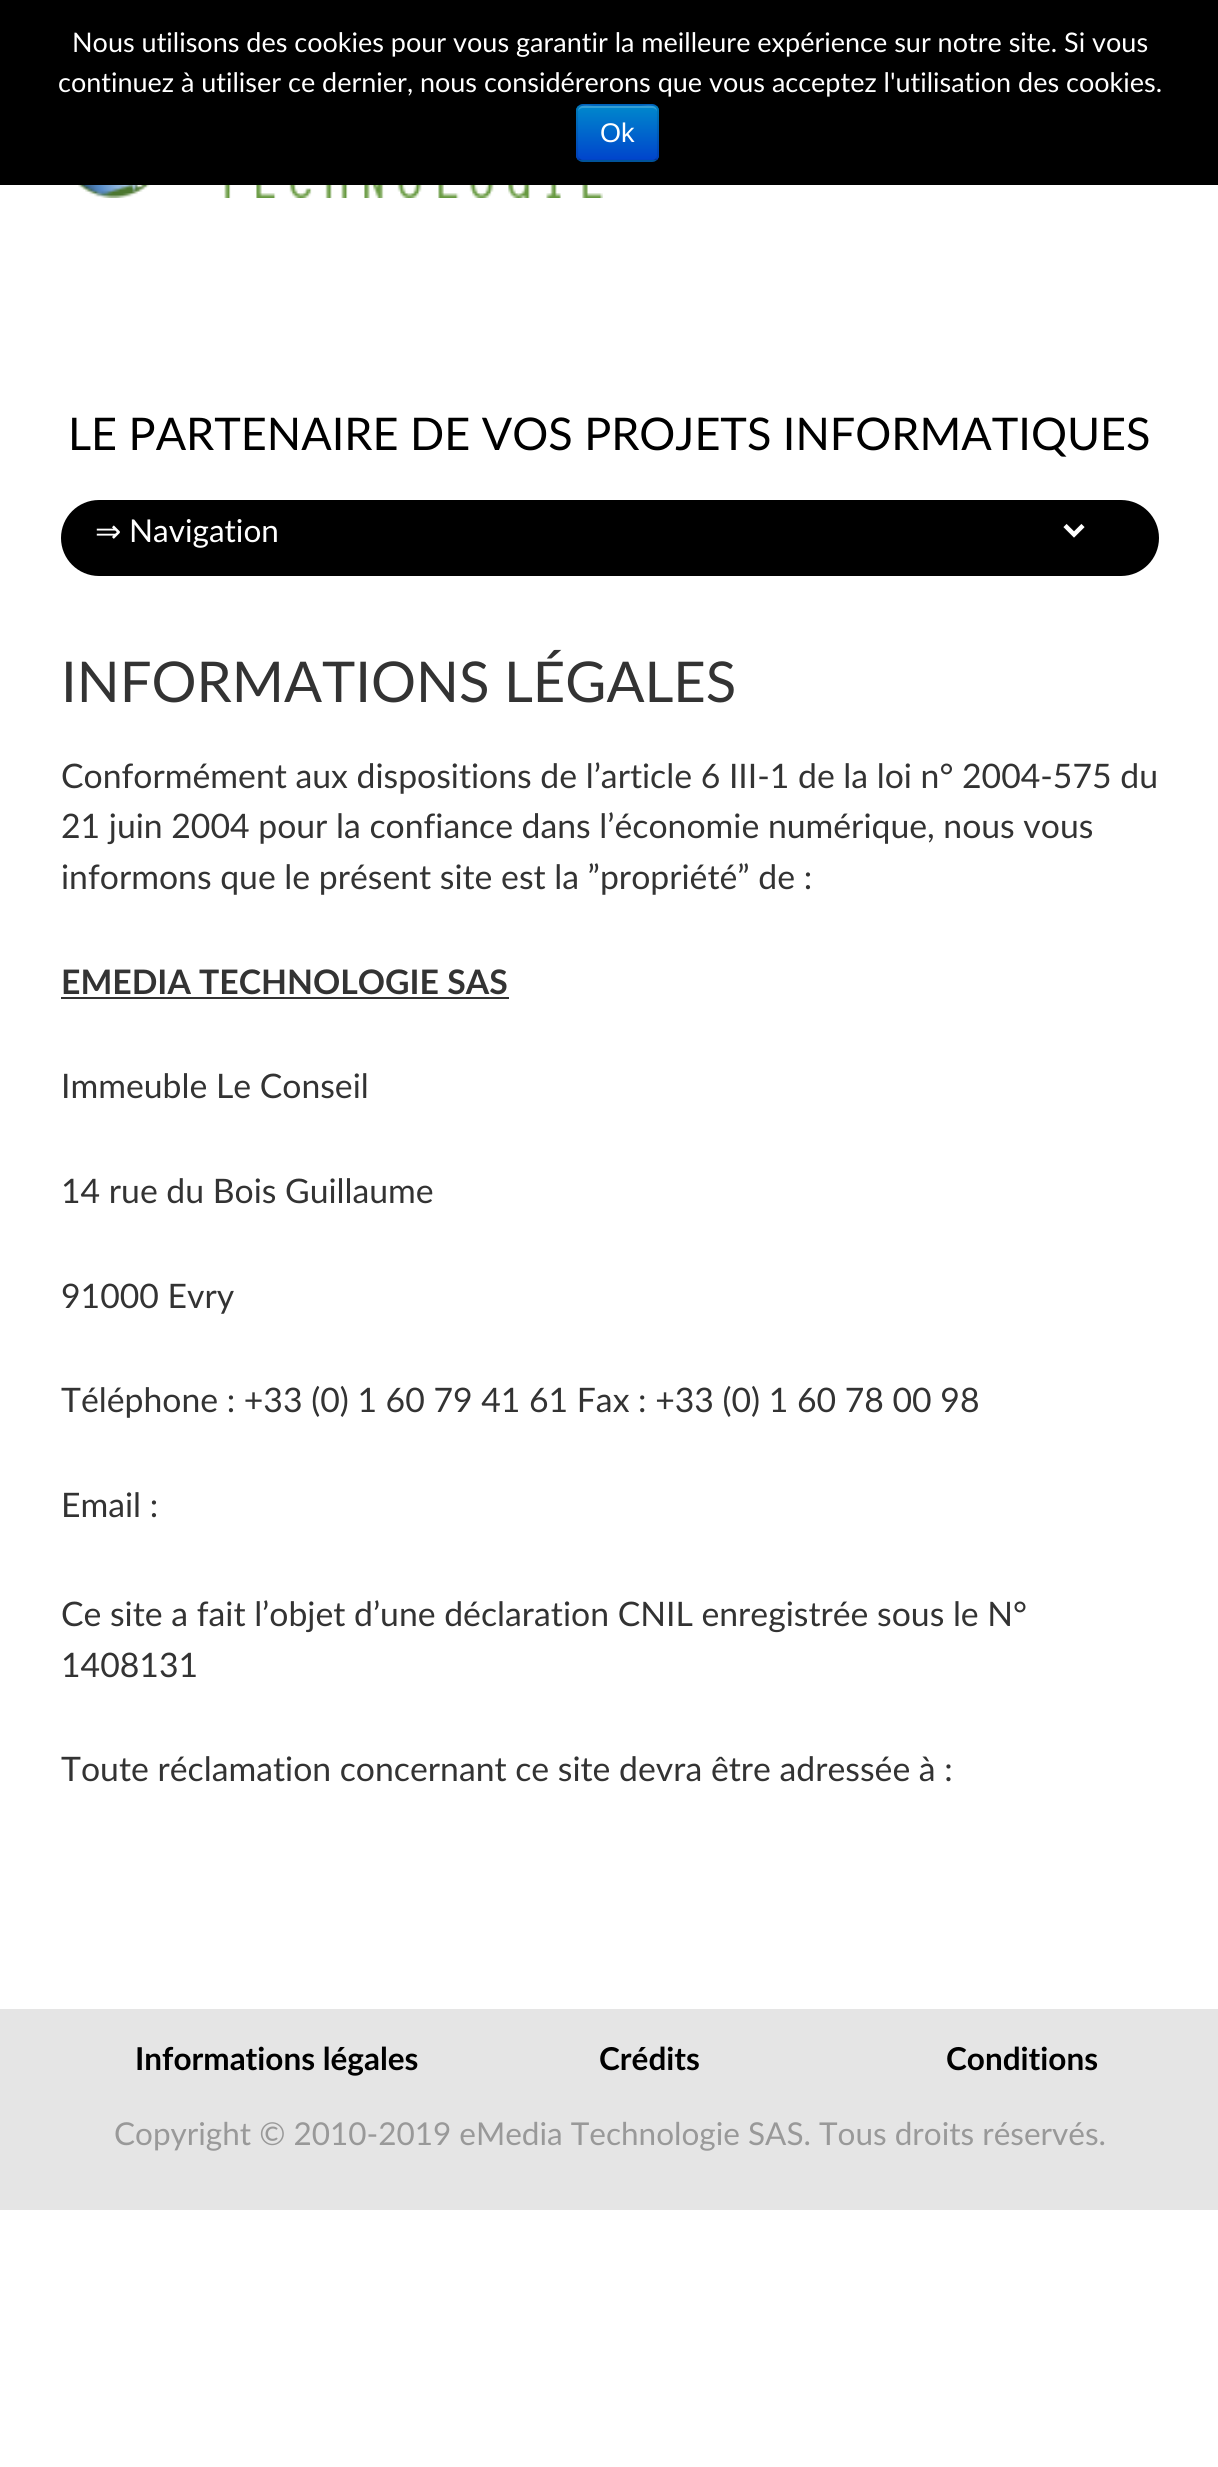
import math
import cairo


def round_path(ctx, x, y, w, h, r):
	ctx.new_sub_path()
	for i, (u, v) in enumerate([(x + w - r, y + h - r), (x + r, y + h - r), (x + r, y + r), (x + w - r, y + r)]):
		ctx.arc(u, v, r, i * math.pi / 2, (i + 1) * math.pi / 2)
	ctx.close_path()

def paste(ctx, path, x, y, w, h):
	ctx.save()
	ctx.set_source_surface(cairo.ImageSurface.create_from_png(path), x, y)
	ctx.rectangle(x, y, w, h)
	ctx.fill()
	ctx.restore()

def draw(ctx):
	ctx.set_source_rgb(1, 1, 1)
	ctx.paint()
	ctx.set_source_rgb(0, 0, 0)
	ctx.rectangle(0, 0, 1218, 185)
	ctx.fill()
	ctx.select_font_face('Lato')
	ctx.set_font_size(27)
	ctx.set_source_rgb(1, 1, 1)
	ctx.move_to(72, 52)
	ctx.show_text('Nous utilisons des cookies pour vous garantir la meilleure expérience sur notre site. Si vous')
	ctx.move_to(58, 92)
	ctx.show_text('continuez à utiliser ce dernier, nous considérerons que vous acceptez l\'utilisation des cookies.')
	ctx.set_source_rgb(0, 0.427, 0.8)
	round_path(ctx, 576, 104, 83, 58, 7)
	ctx.fill()
	ctx.save()
	round_path(ctx, 576, 104, 83, 58, 7)
	ctx.clip()
	gradient = cairo.LinearGradient(618, 106, 618, 160)
	gradient.add_color_stop_rgba(0, 0, 0.533, 0.8, 1)
	gradient.add_color_stop_rgba(1, 0, 0.267, 0.8, 1)
	ctx.set_source(gradient)
	ctx.rectangle(576, 106, 83, 54)
	ctx.fill()
	ctx.restore()
	ctx.set_source_rgba(1, 1, 1, 0.2)
	ctx.new_path()
	ctx.move_to(583, 108)
	ctx.line_to(652, 108)
	ctx.curve_to(655, 108, 657, 110, 657, 112)
	ctx.curve_to(657, 103, 646, 106, 640, 106)
	ctx.line_to(594, 106)
	ctx.curve_to(589, 106, 578, 103, 578, 112)
	ctx.curve_to(578, 110, 580, 108, 583, 108)
	ctx.close_path()
	ctx.fill()
	ctx.new_path()
	ctx.move_to(656.5, 159)
	ctx.curve_to(655.5, 160.5, 654, 161, 652.5, 161)
	ctx.line_to(583, 161)
	ctx.curve_to(581.5, 161, 580, 160.5, 579, 159)
	ctx.set_source_rgba(0, 0, 0, 0.25)
	ctx.set_line_width(2.2)
	ctx.stroke()
	ctx.new_path()
	ctx.move_to(579, 159)
	ctx.curve_to(577.5, 158, 577, 156.5, 577, 155)
	ctx.line_to(577, 110)
	ctx.curve_to(577, 109, 577.5, 107.5, 579, 106.5)
	ctx.curve_to(580, 105, 581.5, 104.5, 583, 104.5)
	ctx.line_to(652.5, 104.5)
	ctx.curve_to(654, 104.5, 655.5, 105, 656.5, 106.5)
	ctx.curve_to(657.5, 107.5, 658, 109, 658, 110)
	ctx.line_to(658, 155)
	ctx.curve_to(658, 156.5, 657.5, 158, 656.5, 159)
	ctx.set_source_rgba(0, 0, 0, 0.1)
	ctx.stroke()
	ctx.select_font_face('Liberation Sans')
	ctx.set_source_rgb(1, 1, 1)
	ctx.move_to(600, 142)
	ctx.show_text('Ok')
	paste(ctx, 'media/1.png', 78, 185, 525, 13)
	ctx.select_font_face('Lato')
	ctx.set_font_size(45)
	ctx.set_source_rgb(0, 0, 0)
	ctx.move_to(68, 450)
	ctx.show_text('LE PARTENAIRE DE VOS PROJETS INFORMATIQUES')
	round_path(ctx, 61, 500, 1098, 76, 38)
	ctx.fill()
	ctx.new_path()
	ctx.move_to(1065, 525.5)
	ctx.line_to(1074, 534.5)
	ctx.line_to(1083, 525.5)
	ctx.set_source_rgb(1, 1, 1)
	ctx.set_line_width(4.5)
	ctx.stroke()
	ctx.select_font_face('DejaVu Sans')
	ctx.set_font_size(31.5)
	ctx.move_to(95, 542)
	ctx.show_text('⇒')
	ctx.select_font_face('Lato')
	ctx.move_to(129, 542)
	ctx.show_text('Navigation')
	ctx.set_font_size(56.25)
	ctx.set_source_rgb(0.2, 0.2, 0.2)
	ctx.move_to(61, 702)
	ctx.show_text('INFORMATIONS LÉGALES')
	ctx.set_font_size(33.75)
	for x, y, s in [
		(61, 788, 'Conformément aux dispositions de l’article 6 III-1 de la loi n° 2004-575 du'),
		(61, 838, '21 juin 2004 pour la confiance dans l’économie numérique, nous vous'),
		(61, 889, 'informons que le présent site est la ”propriété” de :'),
	]:
		ctx.move_to(x, y)
		ctx.show_text(s)
	ctx.select_font_face('Lato', cairo.FONT_SLANT_NORMAL, cairo.FONT_WEIGHT_BOLD)
	ctx.move_to(61, 994)
	ctx.show_text('EMEDIA TECHNOLOGIE SAS')
	ctx.rectangle(61, 997, 448, 2)
	ctx.fill()
	ctx.select_font_face('Lato')
	for x, y, s in [
		(61, 1098, 'Immeuble Le Conseil'),
		(61, 1203, '14 rue du Bois Guillaume'),
		(61, 1308, '91000 Evry'),
		(61, 1412, 'Téléphone : +33 (0) 1 60 79 41 61 Fax : +33 (0) 1 60 78 00 98'),
		(61, 1517, 'Email :'),
		(61, 1626, 'Ce site a fait l’objet d’une déclaration CNIL enregistrée sous le N°'),
		(61, 1677, '1408131'),
		(61, 1781, 'Toute réclamation concernant ce site devra être adressée à :'),
	]:
		ctx.move_to(x, y)
		ctx.show_text(s)
	ctx.set_source_rgb(0.898, 0.898, 0.898)
	ctx.rectangle(0, 2009, 1218, 201)
	ctx.fill()
	ctx.select_font_face('Lato', cairo.FONT_SLANT_NORMAL, cairo.FONT_WEIGHT_BOLD)
	ctx.set_font_size(31.5)
	ctx.set_source_rgb(0, 0, 0)
	for x, y, s in [
		(135, 2070, 'Informations légales'),
		(599, 2070, 'Crédits'),
		(946, 2070, 'Conditions'),
	]:
		ctx.move_to(x, y)
		ctx.show_text(s)
	ctx.select_font_face('Lato')
	ctx.set_source_rgb(0.6, 0.6, 0.6)
	ctx.move_to(114, 2145)
	ctx.show_text('Copyright © 2010-2019 eMedia Technologie SAS. Tous droits réservés.')


surface = cairo.ImageSurface(cairo.FORMAT_RGB24, 1218, 2467)
ctx = cairo.Context(surface)
options = cairo.FontOptions()
options.set_hint_metrics(cairo.HINT_METRICS_OFF)
options.set_hint_style(cairo.HINT_STYLE_NONE)
ctx.set_font_options(options)
ctx.set_miter_limit(4)
draw(ctx)
surface.write_to_png('image.png')
